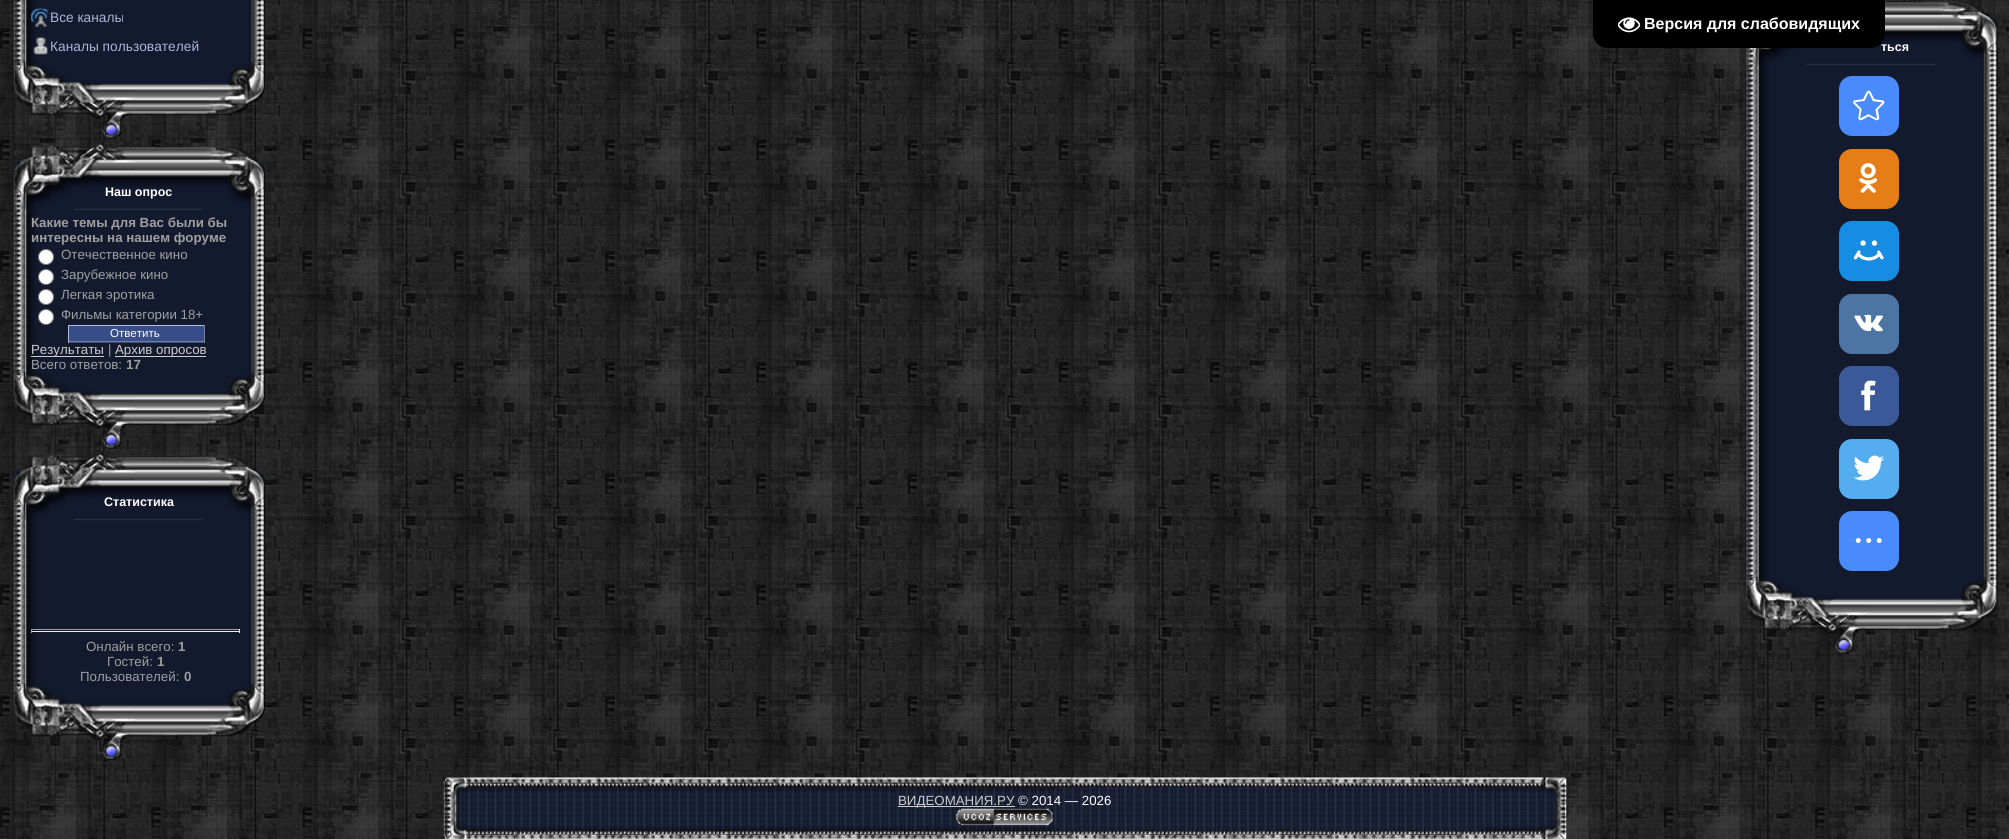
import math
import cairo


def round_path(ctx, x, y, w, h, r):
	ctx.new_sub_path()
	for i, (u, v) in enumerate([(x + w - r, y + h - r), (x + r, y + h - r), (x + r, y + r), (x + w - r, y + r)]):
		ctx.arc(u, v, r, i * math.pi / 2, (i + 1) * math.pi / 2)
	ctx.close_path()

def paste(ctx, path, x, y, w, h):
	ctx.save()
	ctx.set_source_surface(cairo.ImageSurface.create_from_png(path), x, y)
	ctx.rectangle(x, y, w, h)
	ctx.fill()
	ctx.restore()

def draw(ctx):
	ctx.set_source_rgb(1, 1, 1)
	ctx.paint()
	paste(ctx, 'media/1.png', 0, 0, 2009, 839)
	ctx.set_source_rgb(0.075, 0.102, 0.18)
	ctx.rectangle(13, 0, 252, 63)
	ctx.fill()
	paste(ctx, 'media/2.png', 13, 0, 252, 63)
	paste(ctx, 'media/3.png', 31, 8, 17, 20)
	ctx.select_font_face('Liberation Sans')
	ctx.set_font_size(13.75)
	ctx.set_source_rgb(0.663, 0.71, 0.847)
	ctx.move_to(50, 22)
	ctx.show_text('Все каналы')
	paste(ctx, 'media/4.png', 33, 37, 15, 19)
	ctx.move_to(50, 51)
	ctx.show_text('Каналы пользователей')
	paste(ctx, 'media/5.png', 13, 62, 252, 77)
	paste(ctx, 'media/6.png', 13, 141, 252, 74)
	ctx.select_font_face('Liberation Sans', cairo.FONT_SLANT_NORMAL, cairo.FONT_WEIGHT_BOLD)
	ctx.set_font_size(12.5)
	ctx.set_source_rgb(1, 1, 1)
	ctx.move_to(105, 196)
	ctx.show_text('Наш опрос')
	ctx.set_source_rgb(0.075, 0.102, 0.18)
	ctx.rectangle(13, 215, 252, 158)
	ctx.fill()
	paste(ctx, 'media/7.png', 13, 215, 252, 158)
	ctx.set_font_size(13.3)
	ctx.set_source_rgb(0.624, 0.624, 0.624)
	ctx.move_to(31, 227)
	ctx.show_text('Какие темы для Вас были бы')
	ctx.move_to(31, 242)
	ctx.show_text('интересны на нашем форуме')
	ctx.set_source_rgb(1, 1, 1)
	ctx.new_path()
	ctx.arc(46, 257, 7.5, 0, 2 * math.pi)
	ctx.fill_preserve()
	ctx.set_source_rgb(0.463, 0.463, 0.463)
	ctx.set_line_width(1)
	ctx.stroke()
	ctx.select_font_face('Liberation Sans')
	ctx.set_source_rgb(0.624, 0.624, 0.624)
	ctx.move_to(61, 259)
	ctx.show_text('Отечественное кино')
	ctx.set_source_rgb(1, 1, 1)
	ctx.new_path()
	ctx.arc(46, 277, 7.5, 0, 2 * math.pi)
	ctx.fill_preserve()
	ctx.set_source_rgb(0.463, 0.463, 0.463)
	ctx.stroke()
	ctx.set_source_rgb(0.624, 0.624, 0.624)
	ctx.move_to(61, 279)
	ctx.show_text('Зарубежное кино')
	ctx.set_source_rgb(1, 1, 1)
	ctx.new_path()
	ctx.arc(46, 297, 7.5, 0, 2 * math.pi)
	ctx.fill_preserve()
	ctx.set_source_rgb(0.463, 0.463, 0.463)
	ctx.stroke()
	ctx.set_source_rgb(0.624, 0.624, 0.624)
	ctx.move_to(61, 299)
	ctx.show_text('Легкая эротика')
	ctx.set_source_rgb(1, 1, 1)
	ctx.new_path()
	ctx.arc(46, 317, 7.5, 0, 2 * math.pi)
	ctx.fill_preserve()
	ctx.set_source_rgb(0.463, 0.463, 0.463)
	ctx.stroke()
	ctx.set_source_rgb(0.624, 0.624, 0.624)
	ctx.move_to(61, 319)
	ctx.show_text('Фильмы категории 18+')
	ctx.set_source_rgb(0.224, 0.302, 0.537)
	ctx.rectangle(69, 326, 135, 17)
	ctx.fill()
	ctx.set_source_rgb(0.686, 0.741, 0.894)
	ctx.rectangle(68, 325, 137, 1)
	ctx.fill()
	ctx.set_source_rgb(0.459, 0.494, 0.596)
	ctx.rectangle(204, 325, 1, 18)
	ctx.rectangle(68, 341, 137, 1)
	ctx.fill()
	ctx.set_source_rgb(0.686, 0.741, 0.894)
	ctx.rectangle(68, 325, 1, 18)
	ctx.fill()
	ctx.set_font_size(11.5)
	ctx.set_source_rgb(1, 1, 1)
	ctx.move_to(110, 337)
	ctx.show_text('Ответить')
	ctx.set_source_rgb(0.8, 0.8, 0.8)
	ctx.rectangle(31, 356, 73, 1)
	ctx.fill()
	ctx.set_font_size(13.3)
	ctx.move_to(31, 354)
	ctx.show_text('Результаты')
	ctx.set_source_rgb(0.624, 0.624, 0.624)
	ctx.move_to(108, 354)
	ctx.show_text('|')
	ctx.set_source_rgb(0.8, 0.8, 0.8)
	ctx.rectangle(115, 356, 91, 1)
	ctx.fill()
	ctx.move_to(115, 354)
	ctx.show_text('Архив опросов')
	ctx.set_source_rgb(0.624, 0.624, 0.624)
	ctx.move_to(31, 369)
	ctx.show_text('Всего ответов:')
	ctx.select_font_face('Liberation Sans', cairo.FONT_SLANT_NORMAL, cairo.FONT_WEIGHT_BOLD)
	ctx.move_to(126, 369)
	ctx.show_text('17')
	paste(ctx, 'media/8.png', 13, 372, 252, 77)
	paste(ctx, 'media/9.png', 13, 451, 252, 74)
	ctx.set_font_size(12.5)
	ctx.set_source_rgb(1, 1, 1)
	ctx.move_to(104, 506)
	ctx.show_text('Статистика')
	ctx.set_source_rgb(0.075, 0.102, 0.18)
	ctx.rectangle(13, 525, 252, 159)
	ctx.fill()
	paste(ctx, 'media/10.png', 13, 525, 252, 159)
	ctx.set_source_rgb(0.624, 0.624, 0.624)
	ctx.rectangle(31, 629, 209, 1)
	ctx.fill()
	ctx.set_source_rgb(0.933, 0.933, 0.933)
	ctx.rectangle(239, 629, 1, 4)
	ctx.rectangle(31, 631, 209, 1)
	ctx.fill()
	ctx.set_source_rgb(0.624, 0.624, 0.624)
	ctx.rectangle(31, 629, 1, 4)
	ctx.fill()
	ctx.select_font_face('Liberation Sans')
	ctx.set_font_size(13.3)
	ctx.move_to(86, 651)
	ctx.show_text('Онлайн всего:')
	ctx.select_font_face('Liberation Sans', cairo.FONT_SLANT_NORMAL, cairo.FONT_WEIGHT_BOLD)
	ctx.move_to(178, 651)
	ctx.show_text('1')
	ctx.select_font_face('Liberation Sans')
	ctx.move_to(107, 666)
	ctx.show_text('Гостей:')
	ctx.select_font_face('Liberation Sans', cairo.FONT_SLANT_NORMAL, cairo.FONT_WEIGHT_BOLD)
	ctx.move_to(157, 666)
	ctx.show_text('1')
	ctx.select_font_face('Liberation Sans')
	ctx.move_to(80, 681)
	ctx.show_text('Пользователей:')
	ctx.select_font_face('Liberation Sans', cairo.FONT_SLANT_NORMAL, cairo.FONT_WEIGHT_BOLD)
	ctx.move_to(184, 681)
	ctx.show_text('0')
	paste(ctx, 'media/11.png', 13, 683, 252, 78)
	paste(ctx, 'media/12.png', 1746, 1, 252, 69)
	ctx.set_font_size(12.5)
	ctx.set_source_rgb(1, 1, 1)
	ctx.move_to(1881, 51)
	ctx.show_text('ться')
	ctx.set_source_rgb(0.075, 0.102, 0.18)
	ctx.rectangle(1745, 70, 253, 508)
	ctx.fill()
	paste(ctx, 'media/13.png', 1746, 70, 252, 508)
	ctx.set_source_rgb(0.286, 0.545, 0.98)
	round_path(ctx, 1839, 76, 60, 60, 13)
	ctx.fill()
	paste(ctx, 'media/14.png', 1853, 90, 32, 31)
	ctx.set_source_rgb(0.902, 0.494, 0.09)
	round_path(ctx, 1839, 149, 60, 60, 13)
	ctx.fill()
	paste(ctx, 'media/15.png', 1859, 163, 19, 30)
	ctx.set_source_rgb(0.086, 0.553, 0.886)
	round_path(ctx, 1839, 221, 60, 60, 13)
	ctx.fill()
	paste(ctx, 'media/16.png', 1853, 240, 31, 21)
	ctx.set_source_rgb(0.302, 0.459, 0.639)
	round_path(ctx, 1839, 294, 60, 60, 13)
	ctx.fill()
	paste(ctx, 'media/17.png', 1854, 314, 29, 18)
	ctx.set_source_rgb(0.231, 0.349, 0.596)
	round_path(ctx, 1839, 366, 60, 60, 13)
	ctx.fill()
	paste(ctx, 'media/18.png', 1861, 380, 15, 31)
	ctx.set_source_rgb(0.333, 0.675, 0.933)
	round_path(ctx, 1839, 439, 60, 60, 13)
	ctx.fill()
	paste(ctx, 'media/19.png', 1853, 455, 31, 26)
	ctx.set_source_rgb(0.286, 0.545, 0.98)
	round_path(ctx, 1839, 511, 60, 60, 13)
	ctx.fill()
	paste(ctx, 'media/20.png', 1855, 538, 27, 5)
	paste(ctx, 'media/21.png', 1746, 577, 252, 77)
	paste(ctx, 'media/22.png', 443, 777, 1124, 62)
	ctx.set_source_rgb(0.8, 0.8, 0.8)
	ctx.rectangle(898, 806, 117, 1)
	ctx.fill()
	ctx.select_font_face('Liberation Sans')
	ctx.set_font_size(13.3)
	ctx.move_to(898, 805)
	ctx.show_text('ВИДЕОМАНИЯ.РУ')
	ctx.set_source_rgb(1, 1, 1)
	ctx.move_to(1018, 805)
	ctx.show_text('© 2014 — 2026')
	paste(ctx, 'media/23.png', 956, 808, 97, 18)
	ctx.set_source_rgb(0, 0, 0)
	ctx.new_path()
	ctx.move_to(1593, 0)
	ctx.line_to(1885, 0)
	ctx.line_to(1885, 33)
	ctx.curve_to(1885, 41.5, 1878.5, 48, 1870, 48)
	ctx.line_to(1608, 48)
	ctx.curve_to(1599.5, 48, 1593, 41.5, 1593, 33)
	ctx.close_path()
	ctx.fill()
	paste(ctx, 'media/24.png', 1618, 17, 22, 16)
	ctx.select_font_face('Liberation Sans', cairo.FONT_SLANT_NORMAL, cairo.FONT_WEIGHT_BOLD)
	ctx.set_font_size(16)
	ctx.set_source_rgb(1, 1, 1)
	ctx.move_to(1644, 29)
	ctx.show_text('Версия для слабовидящих')


surface = cairo.ImageSurface(cairo.FORMAT_RGB24, 2009, 839)
ctx = cairo.Context(surface)
options = cairo.FontOptions()
options.set_hint_metrics(cairo.HINT_METRICS_OFF)
options.set_hint_style(cairo.HINT_STYLE_NONE)
ctx.set_font_options(options)
ctx.set_miter_limit(4)
draw(ctx)
surface.write_to_png('image.png')
